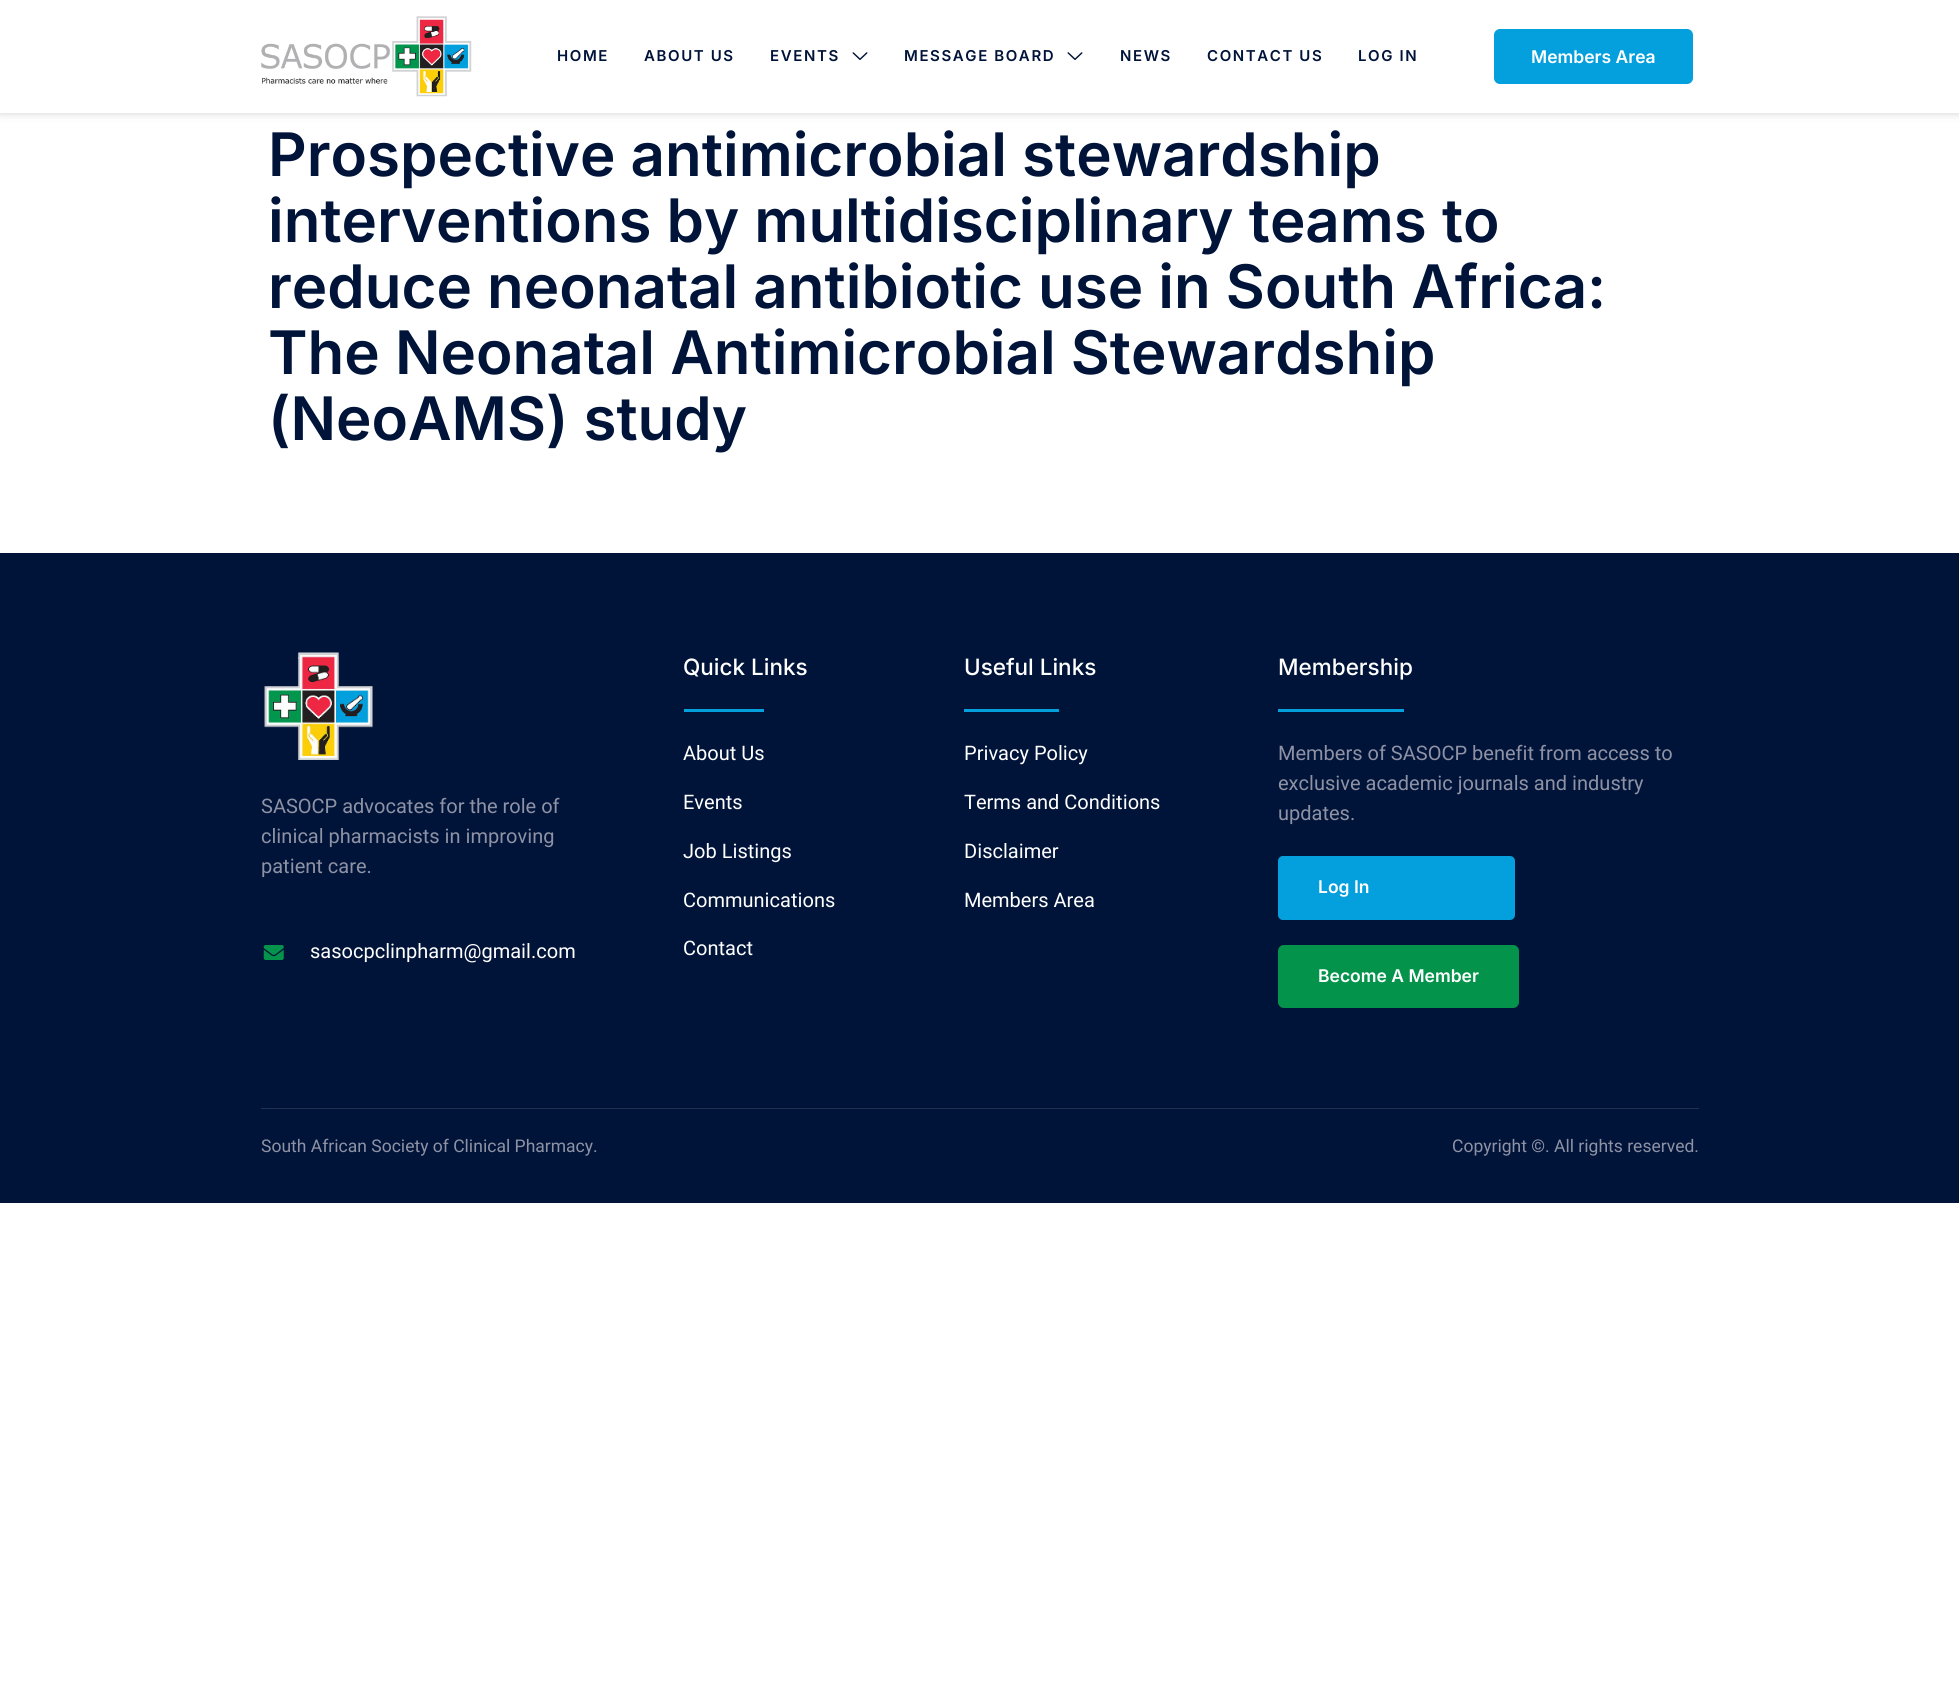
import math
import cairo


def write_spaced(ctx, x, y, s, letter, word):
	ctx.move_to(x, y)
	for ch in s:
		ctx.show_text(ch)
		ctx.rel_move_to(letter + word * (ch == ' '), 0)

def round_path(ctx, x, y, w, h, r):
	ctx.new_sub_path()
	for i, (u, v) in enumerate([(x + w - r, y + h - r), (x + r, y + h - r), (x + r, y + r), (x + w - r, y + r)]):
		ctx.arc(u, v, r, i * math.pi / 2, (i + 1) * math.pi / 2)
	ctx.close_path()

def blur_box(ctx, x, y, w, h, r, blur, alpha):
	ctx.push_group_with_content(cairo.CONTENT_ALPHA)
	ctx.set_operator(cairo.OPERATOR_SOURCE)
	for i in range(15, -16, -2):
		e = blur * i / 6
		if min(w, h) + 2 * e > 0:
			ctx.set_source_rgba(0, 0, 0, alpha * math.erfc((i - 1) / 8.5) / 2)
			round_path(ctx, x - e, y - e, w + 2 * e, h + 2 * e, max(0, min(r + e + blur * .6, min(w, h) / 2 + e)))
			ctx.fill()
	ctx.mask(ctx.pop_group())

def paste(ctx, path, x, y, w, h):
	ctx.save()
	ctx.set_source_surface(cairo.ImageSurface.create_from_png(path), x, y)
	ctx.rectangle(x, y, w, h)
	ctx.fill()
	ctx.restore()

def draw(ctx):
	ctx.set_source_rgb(1, 1, 1)
	ctx.paint()
	ctx.set_source_rgb(0, 0, 0)
	blur_box(ctx, 0, -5, 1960, 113, 0, 6, 0.5)
	ctx.set_source_rgb(1, 1, 1)
	ctx.rectangle(0, 0, 1959, 113)
	ctx.fill()
	paste(ctx, 'media/1.png', 261, 16, 211, 81)
	ctx.select_font_face('Inter SemiBold')
	ctx.set_font_size(15)
	ctx.set_source_rgb(0, 0.078, 0.224)
	for x, y, s in [
		(557, 61, 'HOME'),
		(644, 61, 'ABOUT US'),
		(770, 61, 'EVENTS'),
	]:
		write_spaced(ctx, x, y, s, 1.6, 0)
	paste(ctx, 'media/2.png', 852, 52, 16, 8)
	write_spaced(ctx, 904, 61, 'MESSAGE BOARD', 1.6, 0)
	paste(ctx, 'media/2.png', 1067, 52, 16, 8)
	for x, y, s in [
		(1120, 61, 'NEWS'),
		(1207, 61, 'CONTACT US'),
		(1358, 61, 'LOG IN'),
	]:
		write_spaced(ctx, x, y, s, 1.6, 0)
	ctx.set_source_rgb(0.016, 0.624, 0.867)
	round_path(ctx, 1494, 29, 199, 55, 6)
	ctx.fill()
	ctx.set_font_size(17.5)
	ctx.set_source_rgb(1, 1, 1)
	ctx.move_to(1531, 63)
	ctx.show_text('Members Area')
	ctx.set_font_size(60)
	ctx.set_source_rgb(0, 0.078, 0.224)
	for x, y, s in [
		(268, 176, 'Prospective antimicrobial stewardship'),
		(268, 242, 'interventions by multidisciplinary teams to'),
		(268, 308, 'reduce neonatal antibiotic use in South Africa:'),
		(268, 374, 'The Neonatal Antimicrobial Stewardship'),
		(268, 440, '(NeoAMS) study'),
	]:
		ctx.move_to(x, y)
		ctx.show_text(s)
	ctx.rectangle(0, 553, 1959, 650)
	ctx.fill()
	paste(ctx, 'media/3.png', 264, 652, 109, 108)
	ctx.select_font_face('Heebo')
	ctx.set_font_size(20)
	ctx.set_source_rgb(0.557, 0.573, 0.643)
	for x, y, s in [
		(261, 813, 'SASOCP advocates for the role of'),
		(261, 843, 'clinical pharmacists in improving'),
		(261, 873, 'patient care.'),
	]:
		ctx.move_to(x, y)
		ctx.show_text(s)
	paste(ctx, 'media/4.png', 263, 945, 21, 15)
	ctx.set_source_rgb(1, 1, 1)
	ctx.move_to(310, 958)
	ctx.show_text('sasocpclinpharm@gmail.com')
	ctx.select_font_face('Inter Medium')
	ctx.set_font_size(22.5)
	ctx.move_to(683, 675)
	ctx.show_text('Quick Links')
	ctx.set_source_rgb(0.016, 0.624, 0.867)
	ctx.rectangle(684, 709, 80, 3)
	ctx.fill()
	ctx.select_font_face('Heebo')
	ctx.set_font_size(20)
	ctx.set_source_rgb(1, 1, 1)
	for x, y, s in [
		(683, 760, 'About Us'),
		(683, 809, 'Events'),
		(683, 858, 'Job Listings'),
		(683, 907, 'Communications'),
		(683, 955, 'Contact'),
	]:
		ctx.move_to(x, y)
		ctx.show_text(s)
	ctx.select_font_face('Inter Medium')
	ctx.set_font_size(22.5)
	ctx.move_to(964, 675)
	ctx.show_text('Useful Links')
	ctx.set_source_rgb(0.016, 0.624, 0.867)
	ctx.rectangle(964, 709, 95, 3)
	ctx.fill()
	ctx.select_font_face('Heebo')
	ctx.set_font_size(20)
	ctx.set_source_rgb(1, 1, 1)
	for x, y, s in [
		(964, 760, 'Privacy Policy'),
		(964, 809, 'Terms and Conditions'),
		(964, 858, 'Disclaimer'),
		(964, 907, 'Members Area'),
	]:
		ctx.move_to(x, y)
		ctx.show_text(s)
	ctx.select_font_face('Inter Medium')
	ctx.set_font_size(22.5)
	ctx.move_to(1278, 675)
	ctx.show_text('Membership')
	ctx.set_source_rgb(0.016, 0.624, 0.867)
	ctx.rectangle(1278, 709, 126, 3)
	ctx.fill()
	ctx.select_font_face('Heebo')
	ctx.set_font_size(20)
	ctx.set_source_rgb(0.557, 0.573, 0.643)
	for x, y, s in [
		(1278, 760, 'Members of SASOCP benefit from access to'),
		(1278, 790, 'exclusive academic journals and industry'),
		(1278, 820, 'updates.'),
	]:
		ctx.move_to(x, y)
		ctx.show_text(s)
	ctx.set_source_rgb(0.016, 0.624, 0.867)
	round_path(ctx, 1278, 856, 237, 64, 5)
	ctx.fill()
	ctx.select_font_face('Inter SemiBold')
	ctx.set_font_size(17.5)
	ctx.set_source_rgb(1, 1, 1)
	ctx.move_to(1318, 893)
	ctx.show_text('Log In')
	ctx.set_source_rgb(0.012, 0.576, 0.294)
	round_path(ctx, 1278, 945, 241, 63, 6)
	ctx.fill()
	ctx.set_source_rgb(1, 1, 1)
	ctx.move_to(1318, 982)
	ctx.show_text('Become A Member')
	ctx.set_source_rgb(0.122, 0.188, 0.318)
	ctx.rectangle(261, 1108, 1438, 1)
	ctx.fill()
	ctx.select_font_face('Heebo')
	ctx.set_source_rgb(0.557, 0.573, 0.643)
	ctx.move_to(261, 1152)
	ctx.show_text('South African Society of Clinical Pharmacy.')
	ctx.move_to(1452, 1152)
	ctx.show_text('Copyright ©. All rights reserved.')


surface = cairo.ImageSurface(cairo.FORMAT_RGB24, 1959, 1698)
ctx = cairo.Context(surface)
options = cairo.FontOptions()
options.set_hint_metrics(cairo.HINT_METRICS_OFF)
options.set_hint_style(cairo.HINT_STYLE_NONE)
ctx.set_font_options(options)
ctx.set_miter_limit(4)
draw(ctx)
surface.write_to_png('image.png')
